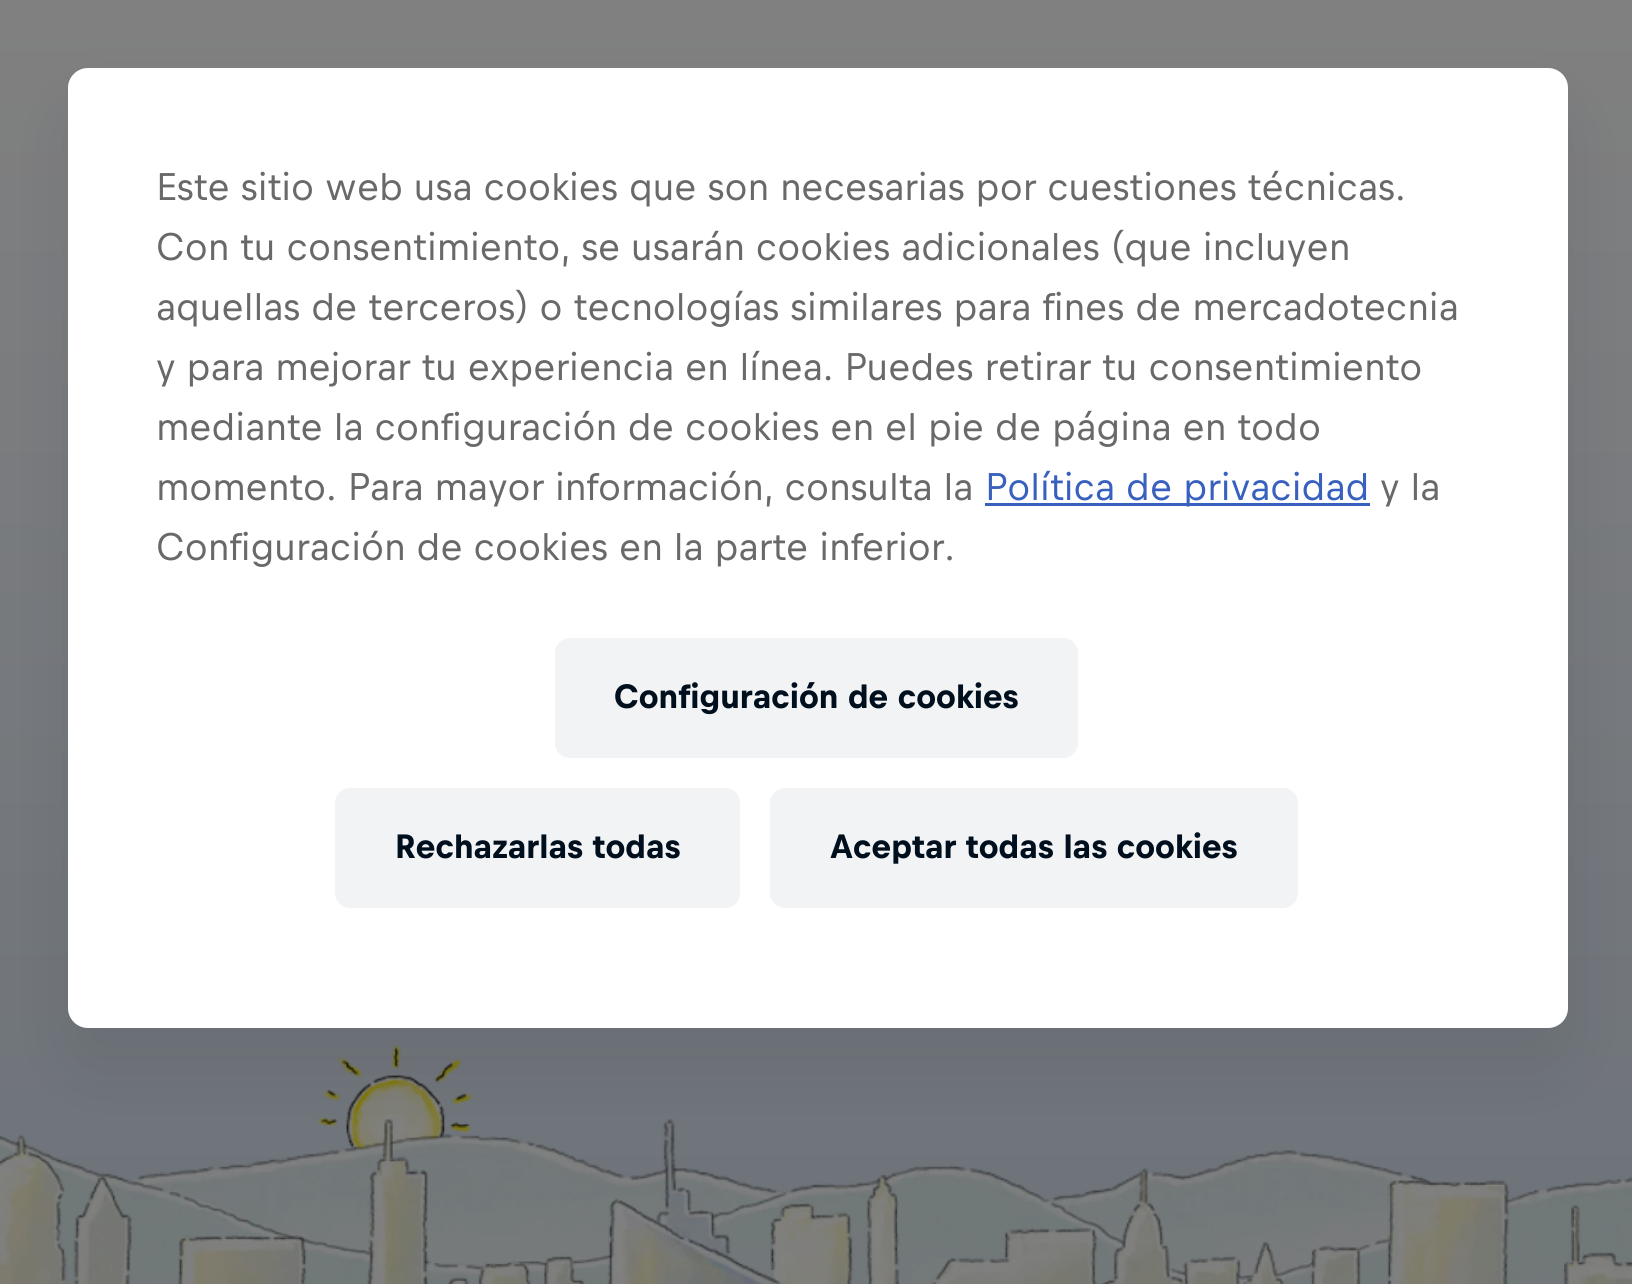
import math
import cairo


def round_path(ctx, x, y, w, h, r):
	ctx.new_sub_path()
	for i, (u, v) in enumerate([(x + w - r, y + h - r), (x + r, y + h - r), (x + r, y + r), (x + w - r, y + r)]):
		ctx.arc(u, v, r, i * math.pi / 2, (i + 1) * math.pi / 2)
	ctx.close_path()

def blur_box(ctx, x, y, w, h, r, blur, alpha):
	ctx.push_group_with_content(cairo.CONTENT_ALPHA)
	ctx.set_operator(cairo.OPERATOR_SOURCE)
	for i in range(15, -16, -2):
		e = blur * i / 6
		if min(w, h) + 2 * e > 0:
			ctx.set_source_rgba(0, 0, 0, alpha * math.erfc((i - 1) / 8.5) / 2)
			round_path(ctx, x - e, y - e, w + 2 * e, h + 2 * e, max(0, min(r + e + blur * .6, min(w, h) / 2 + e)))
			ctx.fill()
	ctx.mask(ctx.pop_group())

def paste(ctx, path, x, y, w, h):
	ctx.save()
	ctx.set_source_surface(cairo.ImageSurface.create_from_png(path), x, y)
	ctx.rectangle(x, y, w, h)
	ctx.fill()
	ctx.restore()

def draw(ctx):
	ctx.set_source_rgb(1, 1, 1)
	ctx.paint()
	gradient = cairo.LinearGradient(816, 0, 816, 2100)
	gradient.add_color_stop_rgba(0, 0.502, 0.502, 0.502, 1)
	gradient.add_color_stop_rgba(1, 0.384, 0.42, 0.463, 1)
	ctx.set_source(gradient)
	ctx.rectangle(0, 0, 1632, 1278)
	ctx.fill()
	paste(ctx, 'media/1.png', 317, 1044, 155, 115)
	paste(ctx, 'media/3.png', 0, 1133, 1632, 151)
	paste(ctx, 'media/2.png', 0, 1118, 1632, 166)
	ctx.set_source_rgb(0, 0.059, 0.118)
	blur_box(ctx, 68, 108, 1500, 960, 20, 40, 0.08)
	ctx.set_source_rgb(1, 1, 1)
	round_path(ctx, 68, 68, 1500, 960, 20)
	ctx.fill()
	ctx.select_font_face('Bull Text')
	ctx.set_font_size(40)
	ctx.set_source_rgb(0.412, 0.412, 0.412)
	for x, y, s in [
		(156, 200, 'Este sitio web usa cookies que son necesarias por cuestiones técnicas.'),
		(156, 260, 'Con tu consentimiento, se usarán cookies adicionales (que incluyen'),
		(156, 320, 'aquellas de terceros) o tecnologías similares para fines de mercadotecnia'),
		(156, 380, 'y para mejorar tu experiencia en línea. Puedes retirar tu consentimiento'),
		(156, 440, 'mediante la configuración de cookies en el pie de página en todo'),
		(156, 500, 'momento. Para mayor información, consulta la'),
	]:
		ctx.move_to(x, y)
		ctx.show_text(s)
	ctx.set_source_rgb(0.22, 0.376, 0.745)
	ctx.rectangle(985, 503, 385, 3)
	ctx.fill()
	ctx.move_to(985, 500)
	ctx.show_text('Política de privacidad')
	ctx.set_source_rgb(0.412, 0.412, 0.412)
	ctx.move_to(1380, 500)
	ctx.show_text('y la')
	ctx.move_to(156, 560)
	ctx.show_text('Configuración de cookies en la parte inferior.')
	ctx.set_source_rgb(0.949, 0.953, 0.957)
	round_path(ctx, 555, 638, 523, 120, 15)
	ctx.fill()
	ctx.select_font_face('Bull Text', cairo.FONT_SLANT_NORMAL, cairo.FONT_WEIGHT_BOLD)
	ctx.set_font_size(35)
	ctx.set_source_rgb(0, 0.059, 0.118)
	ctx.move_to(614, 708)
	ctx.show_text('Configuración de cookies')
	ctx.set_source_rgb(0.949, 0.953, 0.957)
	round_path(ctx, 335, 788, 405, 120, 15)
	ctx.fill()
	ctx.set_source_rgb(0, 0.059, 0.118)
	ctx.move_to(395, 858)
	ctx.show_text('Rechazarlas todas')
	ctx.set_source_rgb(0.949, 0.953, 0.957)
	round_path(ctx, 770, 788, 528, 120, 15)
	ctx.fill()
	ctx.set_source_rgb(0, 0.059, 0.118)
	ctx.move_to(830, 858)
	ctx.show_text('Aceptar todas las cookies')


surface = cairo.ImageSurface(cairo.FORMAT_RGB24, 1632, 1284)
ctx = cairo.Context(surface)
options = cairo.FontOptions()
options.set_hint_metrics(cairo.HINT_METRICS_OFF)
options.set_hint_style(cairo.HINT_STYLE_NONE)
ctx.set_font_options(options)
ctx.set_miter_limit(4)
draw(ctx)
surface.write_to_png('image.png')
